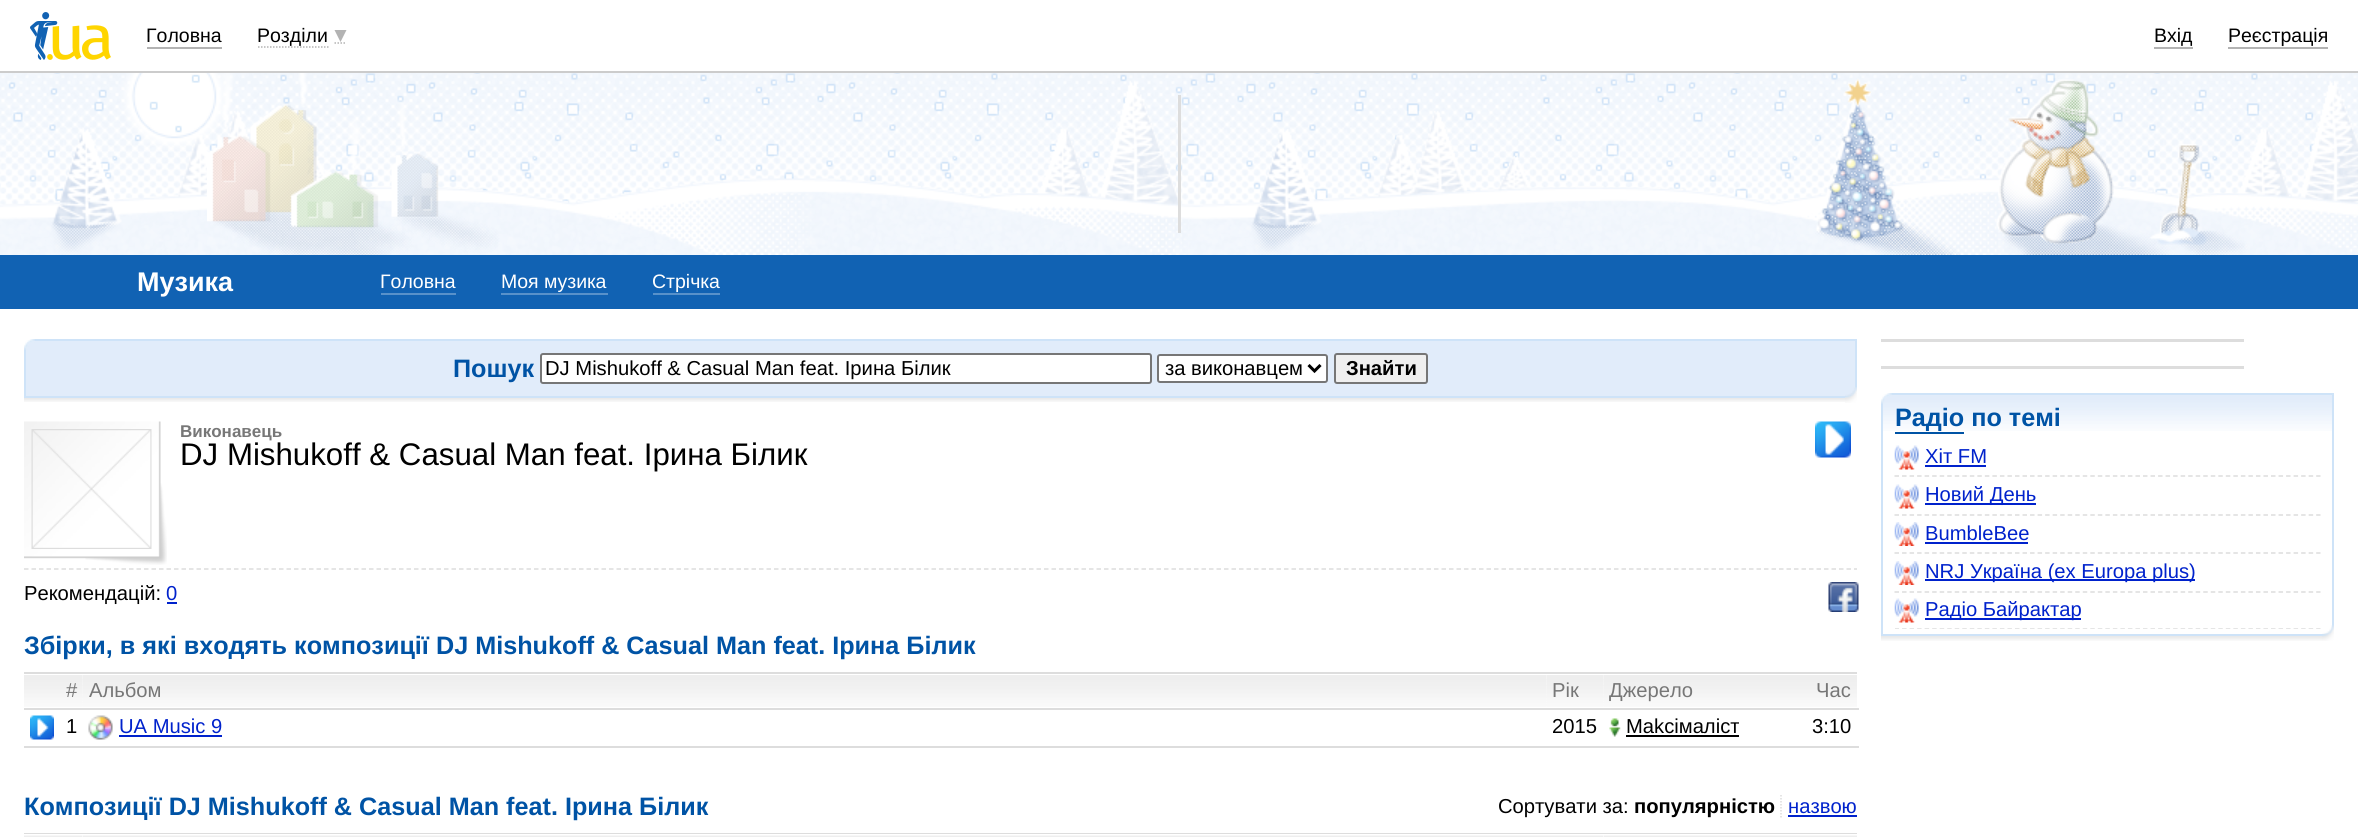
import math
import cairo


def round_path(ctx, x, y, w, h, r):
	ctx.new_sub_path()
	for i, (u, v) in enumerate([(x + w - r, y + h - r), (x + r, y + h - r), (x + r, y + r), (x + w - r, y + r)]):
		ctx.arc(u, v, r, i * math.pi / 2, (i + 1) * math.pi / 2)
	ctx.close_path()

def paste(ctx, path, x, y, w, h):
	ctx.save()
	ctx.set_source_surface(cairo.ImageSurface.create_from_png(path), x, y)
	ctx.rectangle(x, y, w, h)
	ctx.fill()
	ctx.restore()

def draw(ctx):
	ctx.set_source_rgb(1, 1, 1)
	ctx.paint()
	ctx.set_source_rgb(0.8, 0.8, 0.8)
	ctx.rectangle(0, 71, 2358, 2)
	ctx.fill()
	paste(ctx, 'media/1.png', 30, 12, 81, 48)
	ctx.select_font_face('Liberation Sans')
	ctx.set_font_size(19.5)
	ctx.set_source_rgb(0, 0, 0)
	ctx.move_to(146, 42)
	ctx.show_text('Головна')
	ctx.set_source_rgb(0.702, 0.702, 0.702)
	ctx.rectangle(147, 47, 75, 2)
	ctx.fill()
	ctx.new_path()
	ctx.move_to(258, 47)
	ctx.line_to(328.5, 47)
	ctx.set_line_width(1.5)
	ctx.set_dash([1.5, 1.5])
	ctx.stroke()
	ctx.new_path()
	ctx.move_to(334.5, 43)
	ctx.line_to(346.5, 43)
	ctx.stroke()
	ctx.set_source_rgb(0, 0, 0)
	ctx.move_to(257, 42)
	ctx.show_text('Розділи')
	ctx.set_source_rgb(0.702, 0.702, 0.702)
	ctx.new_path()
	ctx.move_to(334.5, 30)
	ctx.line_to(346.5, 30)
	ctx.line_to(340.5, 42)
	ctx.close_path()
	ctx.fill()
	ctx.set_source_rgb(0, 0, 0)
	ctx.move_to(2154, 42)
	ctx.show_text('Вхід')
	ctx.set_source_rgb(0.702, 0.702, 0.702)
	ctx.rectangle(2154, 47, 39, 2)
	ctx.fill()
	ctx.set_source_rgb(0, 0, 0)
	ctx.move_to(2228, 42)
	ctx.show_text('Реєстрація')
	ctx.set_source_rgb(0.702, 0.702, 0.702)
	ctx.rectangle(2228, 47, 100, 2)
	ctx.fill()
	paste(ctx, 'media/2.png', 0, 73, 2358, 182)
	ctx.set_source_rgb(0.867, 0.867, 0.867)
	ctx.rectangle(1178, 95, 3, 138)
	ctx.fill()
	ctx.set_source_rgb(0.067, 0.384, 0.702)
	ctx.rectangle(0, 255, 2358, 54)
	ctx.fill()
	ctx.select_font_face('Liberation Sans', cairo.FONT_SLANT_NORMAL, cairo.FONT_WEIGHT_BOLD)
	ctx.set_font_size(27)
	ctx.set_source_rgb(1, 1, 1)
	ctx.move_to(137, 291)
	ctx.show_text('Музика')
	ctx.select_font_face('Liberation Sans')
	ctx.set_font_size(19.5)
	ctx.move_to(380, 288)
	ctx.show_text('Головна')
	ctx.set_source_rgb(0.345, 0.569, 0.792)
	ctx.rectangle(381, 293, 75, 2)
	ctx.fill()
	ctx.set_source_rgb(1, 1, 1)
	ctx.move_to(501, 288)
	ctx.show_text('Моя музика')
	ctx.set_source_rgb(0.345, 0.569, 0.792)
	ctx.rectangle(501, 293, 107, 2)
	ctx.fill()
	ctx.set_source_rgb(1, 1, 1)
	ctx.move_to(652, 288)
	ctx.show_text('Стрічка')
	ctx.set_source_rgb(0.345, 0.569, 0.792)
	ctx.rectangle(653, 293, 67, 2)
	ctx.fill()
	paste(ctx, 'media/3.png', 24, 398, 1821, 4)
	ctx.set_source_rgb(0.882, 0.925, 0.98)
	ctx.rectangle(25, 340, 1831, 57)
	ctx.fill_preserve()
	ctx.set_source_rgb(0.808, 0.89, 0.969)
	ctx.set_line_width(2)
	ctx.set_dash([])
	ctx.stroke()
	paste(ctx, 'media/4.png', 24, 339, 11, 11)
	ctx.select_font_face('Liberation Sans', cairo.FONT_SLANT_NORMAL, cairo.FONT_WEIGHT_BOLD)
	ctx.set_font_size(25.2)
	ctx.set_source_rgb(0, 0.325, 0.647)
	ctx.move_to(453, 377)
	ctx.show_text('Пошук')
	ctx.set_source_rgb(1, 1, 1)
	round_path(ctx, 541, 354, 610, 29, 2)
	ctx.fill_preserve()
	ctx.set_source_rgb(0.463, 0.463, 0.463)
	ctx.stroke()
	ctx.select_font_face('Liberation Sans')
	ctx.set_font_size(20.2)
	ctx.set_source_rgb(0, 0, 0)
	ctx.move_to(545, 375)
	ctx.show_text('DJ Mishukoff & Casual Man feat. Ірина Білик')
	ctx.set_source_rgb(1, 1, 1)
	round_path(ctx, 1158, 355, 169, 27, 2)
	ctx.fill_preserve()
	ctx.set_source_rgb(0.463, 0.463, 0.463)
	ctx.stroke()
	ctx.new_path()
	ctx.move_to(1308.5, 365)
	ctx.line_to(1314.5, 371)
	ctx.line_to(1320.5, 365)
	ctx.set_source_rgb(0, 0, 0)
	ctx.set_line_width(3)
	ctx.stroke()
	ctx.move_to(1165, 375)
	ctx.show_text('за виконавцем')
	ctx.set_source_rgb(0.937, 0.937, 0.937)
	round_path(ctx, 1335, 354, 92, 29, 2)
	ctx.fill_preserve()
	ctx.set_source_rgb(0.463, 0.463, 0.463)
	ctx.set_line_width(2)
	ctx.stroke()
	ctx.select_font_face('Liberation Sans', cairo.FONT_SLANT_NORMAL, cairo.FONT_WEIGHT_BOLD)
	ctx.set_source_rgb(0, 0, 0)
	ctx.move_to(1346, 375)
	ctx.show_text('Знайти')
	paste(ctx, 'media/5.png', 1845, 387, 12, 16)
	paste(ctx, 'media/6.png', 24, 421, 143, 144)
	paste(ctx, 'media/7.png', 31, 429, 121, 120)
	ctx.set_font_size(17)
	ctx.set_source_rgb(0.467, 0.467, 0.467)
	ctx.move_to(180, 437)
	ctx.show_text('Виконавець')
	paste(ctx, 'media/8.png', 1815, 421, 36, 37)
	ctx.select_font_face('Liberation Sans')
	ctx.set_font_size(31.25)
	ctx.set_source_rgb(0, 0, 0)
	ctx.move_to(180, 465)
	ctx.show_text('DJ Mishukoff & Casual Man feat. Ірина Білик')
	ctx.new_path()
	ctx.move_to(24, 569)
	ctx.line_to(1857, 569)
	ctx.set_source_rgb(0.867, 0.867, 0.867)
	ctx.set_line_width(1.5)
	ctx.set_dash([4.5, 3])
	ctx.stroke()
	ctx.set_font_size(20.2)
	ctx.set_source_rgb(0, 0, 0)
	ctx.move_to(24, 600)
	ctx.show_text('Рекомендацій:')
	ctx.set_source_rgb(0, 0.133, 0.8)
	ctx.move_to(166, 600)
	ctx.show_text('0')
	ctx.rectangle(167, 602, 10, 2)
	ctx.fill()
	paste(ctx, 'media/9.png', 1828, 582, 31, 30)
	ctx.select_font_face('Liberation Sans', cairo.FONT_SLANT_NORMAL, cairo.FONT_WEIGHT_BOLD)
	ctx.set_font_size(25.2)
	ctx.set_source_rgb(0, 0.325, 0.647)
	ctx.move_to(24, 654)
	ctx.show_text('Збірки, в які входять композиції DJ Mishukoff & Casual Man feat. Ірина Білик')
	ctx.set_source_rgb(0.867, 0.867, 0.867)
	ctx.rectangle(24, 672, 1833, 2)
	ctx.fill()
	ctx.rectangle(24, 746, 1835, 2)
	ctx.fill()
	paste(ctx, 'media/10.png', 24, 675, 36, 32)
	paste(ctx, 'media/11.png', 60, 675, 23, 32)
	ctx.select_font_face('Liberation Sans')
	ctx.set_font_size(20.2)
	ctx.set_source_rgb(0.467, 0.467, 0.467)
	ctx.move_to(66, 697)
	ctx.show_text('#')
	paste(ctx, 'media/12.png', 82, 675, 1465, 32)
	ctx.move_to(89, 697)
	ctx.show_text('Альбом')
	paste(ctx, 'media/13.png', 1546, 675, 58, 32)
	ctx.move_to(1552, 697)
	ctx.show_text('Рік')
	paste(ctx, 'media/14.png', 1603, 675, 203, 32)
	ctx.move_to(1609, 697)
	ctx.show_text('Джерело')
	paste(ctx, 'media/15.png', 1806, 675, 51, 32)
	ctx.set_source_rgb(0.867, 0.867, 0.867)
	ctx.rectangle(24, 708, 1835, 2)
	ctx.fill()
	ctx.set_source_rgb(0.467, 0.467, 0.467)
	ctx.move_to(1816, 697)
	ctx.show_text('Час')
	paste(ctx, 'media/16.png', 30, 715, 24, 25)
	ctx.set_source_rgb(0, 0, 0)
	ctx.move_to(66, 733)
	ctx.show_text('1')
	paste(ctx, 'media/17.png', 88, 715, 25, 25)
	ctx.set_source_rgb(0, 0.133, 0.8)
	ctx.move_to(119, 733)
	ctx.show_text('UA Music 9')
	ctx.rectangle(119, 735, 103, 2)
	ctx.fill()
	ctx.set_source_rgb(0, 0, 0)
	ctx.move_to(1552, 733)
	ctx.show_text('2015')
	paste(ctx, 'media/18.png', 1609, 718, 12, 19)
	ctx.move_to(1626, 733)
	ctx.show_text('Makcімаліст')
	ctx.rectangle(1626, 735, 113, 2)
	ctx.fill()
	ctx.move_to(1812, 733)
	ctx.show_text('3:10')
	ctx.select_font_face('Liberation Sans', cairo.FONT_SLANT_NORMAL, cairo.FONT_WEIGHT_BOLD)
	ctx.set_font_size(25.2)
	ctx.set_source_rgb(0, 0.325, 0.647)
	ctx.move_to(24, 815)
	ctx.show_text('Композиції DJ Mishukoff & Casual Man feat. Ірина Білик')
	ctx.select_font_face('Liberation Sans')
	ctx.set_font_size(20.2)
	ctx.set_source_rgb(0, 0, 0)
	ctx.move_to(1498, 813)
	ctx.show_text('Сортувати за:')
	ctx.new_path()
	ctx.move_to(1781, 795)
	ctx.line_to(1781, 817.5)
	ctx.set_source_rgb(0.867, 0.867, 0.867)
	ctx.set_dash([1.5, 1.5])
	ctx.stroke()
	ctx.select_font_face('Liberation Sans', cairo.FONT_SLANT_NORMAL, cairo.FONT_WEIGHT_BOLD)
	ctx.set_source_rgb(0, 0, 0)
	ctx.move_to(1634, 813)
	ctx.show_text('популярністю')
	ctx.select_font_face('Liberation Sans')
	ctx.set_source_rgb(0, 0.133, 0.8)
	ctx.move_to(1788, 813)
	ctx.show_text('назвою')
	ctx.rectangle(1788, 815, 69, 2)
	ctx.fill()
	ctx.set_source_rgb(0.867, 0.867, 0.867)
	ctx.rectangle(24, 833, 1833, 1)
	ctx.fill()
	paste(ctx, 'media/19.png', 24, 835, 36, 2)
	paste(ctx, 'media/20.png', 60, 835, 23, 2)
	paste(ctx, 'media/21.png', 83, 835, 1521, 2)
	paste(ctx, 'media/22.png', 1604, 835, 202, 2)
	paste(ctx, 'media/23.png', 1806, 835, 51, 2)
	ctx.rectangle(1881, 339, 363, 3)
	ctx.fill()
	ctx.rectangle(1881, 366, 363, 3)
	ctx.fill()
	paste(ctx, 'media/24.png', 1881, 636, 441, 5)
	paste(ctx, 'media/26.png', 1883, 395, 449, 36)
	ctx.rectangle(1882, 394, 451, 241)
	ctx.set_source_rgb(0.808, 0.89, 0.969)
	ctx.set_line_width(2)
	ctx.set_dash([])
	ctx.stroke()
	paste(ctx, 'media/25.png', 1881, 393, 11, 11)
	ctx.select_font_face('Liberation Sans', cairo.FONT_SLANT_NORMAL, cairo.FONT_WEIGHT_BOLD)
	ctx.set_font_size(25.2)
	ctx.set_source_rgb(0, 0.325, 0.647)
	ctx.move_to(1895, 426)
	ctx.show_text('Радіо по темі')
	ctx.rectangle(1895, 432, 69, 2)
	ctx.fill()
	ctx.new_path()
	ctx.move_to(1894.5, 476)
	ctx.line_to(2320.5, 476)
	ctx.set_source_rgb(0.867, 0.867, 0.867)
	ctx.set_line_width(1.5)
	ctx.set_dash([4.5, 3.03])
	ctx.stroke()
	paste(ctx, 'media/27.png', 1894, 445, 25, 25)
	ctx.select_font_face('Liberation Sans')
	ctx.set_font_size(20.2)
	ctx.set_source_rgb(0, 0.133, 0.8)
	ctx.move_to(1925, 463)
	ctx.show_text('Хіт FM')
	ctx.rectangle(1925, 465, 61, 2)
	ctx.fill()
	ctx.new_path()
	ctx.move_to(1894.5, 515)
	ctx.line_to(2320.5, 515)
	ctx.set_source_rgb(0.867, 0.867, 0.867)
	ctx.stroke()
	paste(ctx, 'media/27.png', 1894, 484, 25, 25)
	ctx.set_source_rgb(0, 0.133, 0.8)
	ctx.rectangle(1925, 503, 111, 2)
	ctx.fill()
	ctx.move_to(1925, 501)
	ctx.show_text('Новий День')
	ctx.new_path()
	ctx.move_to(1894.5, 553)
	ctx.line_to(2320.5, 553)
	ctx.set_source_rgb(0.867, 0.867, 0.867)
	ctx.stroke()
	paste(ctx, 'media/28.png', 1894, 522, 25, 24)
	ctx.set_source_rgb(0, 0.133, 0.8)
	ctx.move_to(1925, 540)
	ctx.show_text('BumbleBee')
	ctx.rectangle(1925, 542, 103, 2)
	ctx.fill()
	ctx.new_path()
	ctx.move_to(1894.5, 592)
	ctx.line_to(2320.5, 592)
	ctx.set_source_rgb(0.867, 0.867, 0.867)
	ctx.stroke()
	paste(ctx, 'media/28.png', 1894, 561, 25, 24)
	ctx.set_source_rgb(0, 0.133, 0.8)
	ctx.rectangle(1925, 579, 270, 2)
	ctx.fill()
	ctx.move_to(1925, 578)
	ctx.show_text('NRJ Україна (ex Europa plus)')
	ctx.save()
	ctx.rectangle(1895, 438, 426, 191)
	ctx.clip()
	ctx.new_path()
	ctx.move_to(1894.5, 629)
	ctx.line_to(2320.5, 629)
	ctx.set_source_rgb(0.867, 0.867, 0.867)
	ctx.stroke()
	ctx.restore()
	paste(ctx, 'media/27.png', 1894, 598, 25, 25)
	ctx.rectangle(1925, 618, 156, 2)
	ctx.fill()
	ctx.move_to(1925, 616)
	ctx.show_text('Радіо Байрактар')
	paste(ctx, 'media/29.png', 2322, 625, 12, 16)


surface = cairo.ImageSurface(cairo.FORMAT_RGB24, 2358, 837)
ctx = cairo.Context(surface)
options = cairo.FontOptions()
options.set_hint_metrics(cairo.HINT_METRICS_OFF)
options.set_hint_style(cairo.HINT_STYLE_NONE)
ctx.set_font_options(options)
ctx.set_miter_limit(4)
draw(ctx)
surface.write_to_png('image.png')
